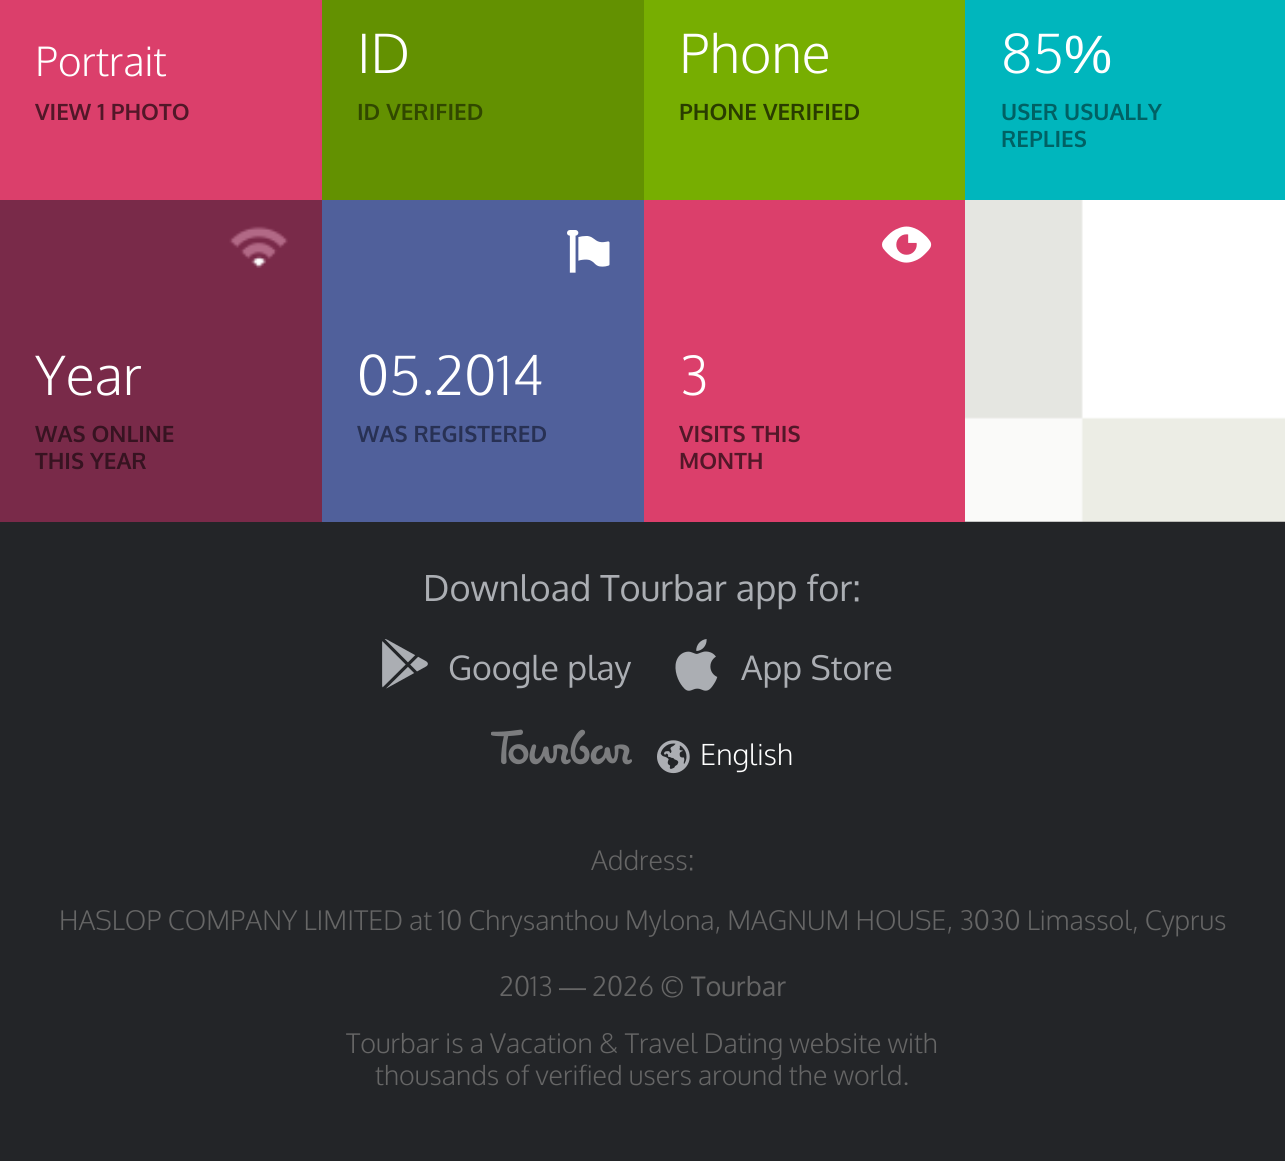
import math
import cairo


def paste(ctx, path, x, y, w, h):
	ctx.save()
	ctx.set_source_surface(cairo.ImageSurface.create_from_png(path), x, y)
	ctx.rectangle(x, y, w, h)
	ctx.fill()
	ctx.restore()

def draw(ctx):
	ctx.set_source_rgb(0.137, 0.145, 0.157)
	ctx.paint()
	paste(ctx, 'media/1.png', 965, 200, 320, 322)
	ctx.set_source_rgb(0.859, 0.247, 0.42)
	ctx.rectangle(0, 0, 322, 200)
	ctx.fill()
	ctx.select_font_face('Oxygen Light')
	ctx.set_font_size(40.5)
	ctx.set_source_rgb(1, 1, 1)
	ctx.move_to(35, 76)
	ctx.show_text('Portrait')
	ctx.select_font_face('Oxygen', cairo.FONT_SLANT_NORMAL, cairo.FONT_WEIGHT_BOLD)
	ctx.set_font_size(22.5)
	ctx.set_source_rgb(0.322, 0.09, 0.157)
	ctx.move_to(35, 120)
	ctx.show_text('VIEW 1 PHOTO')
	ctx.set_source_rgb(0.388, 0.569, 0.004)
	ctx.rectangle(322, 0, 322, 200)
	ctx.fill()
	ctx.select_font_face('Oxygen Light')
	ctx.set_font_size(54)
	ctx.set_source_rgb(1, 1, 1)
	ctx.move_to(357, 73)
	ctx.show_text('ID')
	ctx.select_font_face('Oxygen', cairo.FONT_SLANT_NORMAL, cairo.FONT_WEIGHT_BOLD)
	ctx.set_font_size(22.5)
	ctx.set_source_rgb(0.192, 0.282, 0)
	ctx.move_to(357, 120)
	ctx.show_text('ID VERIFIED')
	ctx.set_source_rgb(0.467, 0.682, 0.004)
	ctx.rectangle(644, 0, 321, 200)
	ctx.fill()
	ctx.select_font_face('Oxygen Light')
	ctx.set_font_size(54)
	ctx.set_source_rgb(1, 1, 1)
	ctx.move_to(679, 73)
	ctx.show_text('Phone')
	ctx.select_font_face('Oxygen', cairo.FONT_SLANT_NORMAL, cairo.FONT_WEIGHT_BOLD)
	ctx.set_font_size(22.5)
	ctx.set_source_rgb(0.161, 0.235, 0)
	ctx.move_to(679, 120)
	ctx.show_text('PHONE VERIFIED')
	ctx.set_source_rgb(0, 0.714, 0.741)
	ctx.rectangle(965, 0, 320, 200)
	ctx.fill()
	ctx.select_font_face('Oxygen Light')
	ctx.set_font_size(54)
	ctx.set_source_rgb(1, 1, 1)
	ctx.move_to(1001, 73)
	ctx.show_text('85')
	ctx.select_font_face('Liberation Sans')
	ctx.move_to(1064, 73)
	ctx.show_text('%')
	ctx.select_font_face('Oxygen', cairo.FONT_SLANT_NORMAL, cairo.FONT_WEIGHT_BOLD)
	ctx.set_font_size(22.5)
	ctx.set_source_rgb(0, 0.38, 0.392)
	ctx.move_to(1001, 120)
	ctx.show_text('USER USUALLY')
	ctx.move_to(1001, 147)
	ctx.show_text('REPLIES')
	ctx.set_source_rgb(0.475, 0.165, 0.286)
	ctx.rectangle(0, 200, 322, 322)
	ctx.fill()
	paste(ctx, 'media/2.png', 229, 226, 59, 42)
	ctx.select_font_face('Oxygen Light')
	ctx.set_font_size(54)
	ctx.set_source_rgb(1, 1, 1)
	ctx.move_to(35, 395)
	ctx.show_text('Year')
	ctx.select_font_face('Oxygen', cairo.FONT_SLANT_NORMAL, cairo.FONT_WEIGHT_BOLD)
	ctx.set_font_size(22.5)
	ctx.set_source_rgb(0.216, 0.075, 0.129)
	ctx.move_to(35, 442)
	ctx.show_text('WAS ONLINE')
	ctx.move_to(35, 469)
	ctx.show_text('THIS YEAR')
	ctx.set_source_rgb(0.314, 0.376, 0.608)
	ctx.rectangle(322, 200, 322, 322)
	ctx.fill()
	paste(ctx, 'media/3.png', 567, 230, 43, 43)
	ctx.select_font_face('Oxygen Light')
	ctx.set_font_size(54)
	ctx.set_source_rgb(1, 1, 1)
	ctx.move_to(357, 395)
	ctx.show_text('05.2014')
	ctx.select_font_face('Oxygen', cairo.FONT_SLANT_NORMAL, cairo.FONT_WEIGHT_BOLD)
	ctx.set_font_size(22.5)
	ctx.set_source_rgb(0.157, 0.192, 0.329)
	ctx.move_to(357, 442)
	ctx.show_text('WAS REGISTERED')
	ctx.set_source_rgb(0.859, 0.247, 0.42)
	ctx.rectangle(644, 200, 321, 322)
	ctx.fill()
	paste(ctx, 'media/4.png', 882, 226, 50, 37)
	ctx.select_font_face('Oxygen Light')
	ctx.set_font_size(54)
	ctx.set_source_rgb(1, 1, 1)
	ctx.move_to(679, 395)
	ctx.show_text('3')
	ctx.select_font_face('Oxygen', cairo.FONT_SLANT_NORMAL, cairo.FONT_WEIGHT_BOLD)
	ctx.set_font_size(22.5)
	ctx.set_source_rgb(0.322, 0.09, 0.157)
	ctx.move_to(679, 442)
	ctx.show_text('VISITS THIS')
	ctx.move_to(679, 469)
	ctx.show_text('MONTH')
	ctx.select_font_face('Oxygen')
	ctx.set_font_size(36)
	ctx.set_source_rgb(0.671, 0.682, 0.702)
	ctx.move_to(423, 601)
	ctx.show_text('Download Tourbar app for:')
	paste(ctx, 'media/5.png', 382, 639, 46, 50)
	ctx.set_font_size(33.75)
	ctx.move_to(448, 680)
	ctx.show_text('Google play')
	paste(ctx, 'media/6.png', 675, 639, 43, 52)
	ctx.move_to(741, 680)
	ctx.show_text('App Store')
	paste(ctx, 'media/7.png', 491, 729, 141, 36)
	paste(ctx, 'media/8.png', 657, 740, 33, 34)
	ctx.select_font_face('Oxygen Light')
	ctx.set_font_size(29)
	ctx.set_source_rgb(1, 1, 1)
	ctx.move_to(700, 765)
	ctx.show_text('English')
	ctx.set_font_size(27)
	ctx.set_source_rgb(0.4, 0.4, 0.4)
	for x, y, s in [
		(591, 870, 'Address:'),
		(59, 930, 'HASLOP COMPANY LIMITED at 10 Chrysanthou Mylona, MAGNUM HOUSE, 3030 Limassol, Cyprus'),
		(499, 996, '2013'),
	]:
		ctx.move_to(x, y)
		ctx.show_text(s)
	ctx.select_font_face('Liberation Sans')
	ctx.move_to(559, 996)
	ctx.show_text('—')
	ctx.select_font_face('Oxygen Light')
	ctx.move_to(592, 996)
	ctx.show_text('2026 ©')
	ctx.select_font_face('Oxygen')
	ctx.move_to(691, 996)
	ctx.show_text('Tourbar')
	ctx.select_font_face('Oxygen Light')
	ctx.move_to(346, 1053)
	ctx.show_text('Tourbar is a Vacation & Travel Dating website with')
	ctx.move_to(375, 1085)
	ctx.show_text('thousands of verified users around the world.')


surface = cairo.ImageSurface(cairo.FORMAT_RGB24, 1285, 1161)
ctx = cairo.Context(surface)
options = cairo.FontOptions()
options.set_hint_metrics(cairo.HINT_METRICS_OFF)
options.set_hint_style(cairo.HINT_STYLE_NONE)
ctx.set_font_options(options)
ctx.set_miter_limit(4)
draw(ctx)
surface.write_to_png('image.png')
